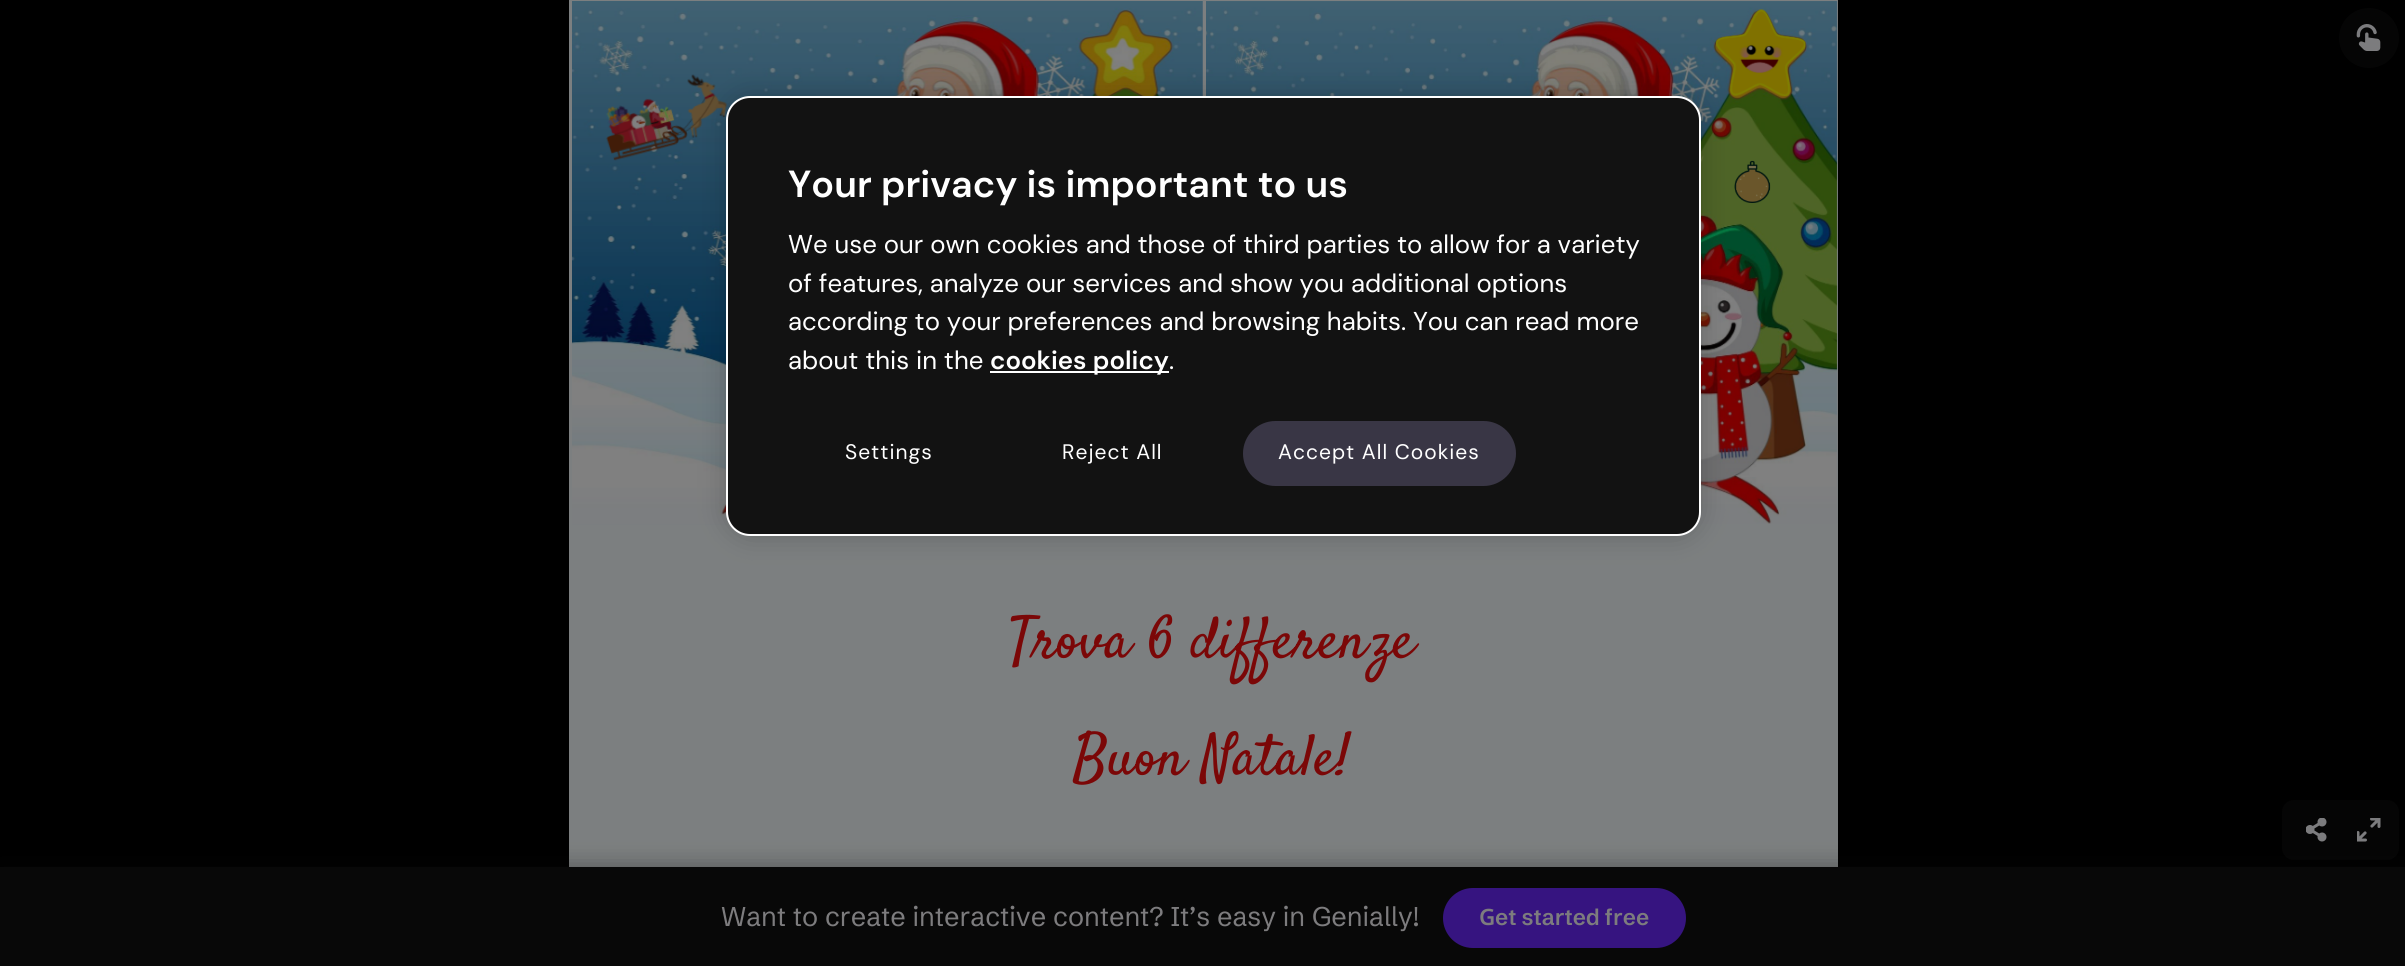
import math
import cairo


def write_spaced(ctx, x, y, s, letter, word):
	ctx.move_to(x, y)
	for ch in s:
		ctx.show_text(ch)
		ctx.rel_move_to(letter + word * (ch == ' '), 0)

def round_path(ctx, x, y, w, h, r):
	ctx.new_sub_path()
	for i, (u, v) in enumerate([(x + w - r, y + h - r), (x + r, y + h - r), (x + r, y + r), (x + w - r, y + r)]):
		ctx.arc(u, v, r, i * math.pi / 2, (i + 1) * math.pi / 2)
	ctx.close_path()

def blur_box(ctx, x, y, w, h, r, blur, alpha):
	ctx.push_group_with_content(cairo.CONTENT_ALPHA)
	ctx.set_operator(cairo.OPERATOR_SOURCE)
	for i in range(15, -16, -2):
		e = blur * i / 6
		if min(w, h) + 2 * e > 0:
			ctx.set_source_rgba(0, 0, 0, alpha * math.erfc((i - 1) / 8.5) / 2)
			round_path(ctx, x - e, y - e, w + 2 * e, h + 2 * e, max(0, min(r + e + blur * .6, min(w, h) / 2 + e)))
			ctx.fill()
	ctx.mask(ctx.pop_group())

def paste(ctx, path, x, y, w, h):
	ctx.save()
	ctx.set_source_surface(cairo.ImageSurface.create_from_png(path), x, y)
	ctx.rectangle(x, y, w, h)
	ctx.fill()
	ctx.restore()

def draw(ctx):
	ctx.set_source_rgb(0, 0, 0)
	ctx.paint()
	ctx.set_source_rgb(0.486, 0.498, 0.502)
	ctx.rectangle(569, 0, 1269, 867)
	ctx.fill()
	paste(ctx, 'media/1.png', 572, 1, 631, 524)
	paste(ctx, 'media/2.png', 1206, 1, 632, 523)
	paste(ctx, 'media/3.png', 1716, 9, 90, 87)
	paste(ctx, 'media/4.png', 606, 74, 122, 87)
	paste(ctx, 'media/5.png', 1734, 160, 37, 43)
	ctx.set_source_rgb(0, 0, 0)
	blur_box(ctx, 726, 96, 975, 440, 24, 13.5, 0.2)
	ctx.set_source_rgb(0.071, 0.071, 0.071)
	round_path(ctx, 727, 97, 973, 438, 23)
	ctx.fill_preserve()
	ctx.set_source_rgb(1, 1, 1)
	ctx.stroke()
	ctx.select_font_face('DM Sans SemiBold')
	ctx.set_font_size(37.75)
	ctx.move_to(788, 197)
	ctx.show_text('Your privacy is important to us')
	ctx.select_font_face('DM Sans')
	ctx.set_font_size(25.8)
	for x, y, s in [
		(788, 253, 'We use our own cookies and those of third parties to allow for a variety'),
		(788, 292, 'of features, analyze our services and show you additional options'),
		(788, 330, 'according to your preferences and browsing habits. You can read more'),
		(788, 369, 'about this in the'),
	]:
		ctx.move_to(x, y)
		ctx.show_text(s)
	ctx.rectangle(990, 371, 179, 2)
	ctx.fill()
	ctx.select_font_face('DM Sans SemiBold')
	ctx.move_to(990, 369)
	ctx.show_text('cookies policy')
	ctx.select_font_face('DM Sans')
	ctx.move_to(1169, 369)
	ctx.show_text('.')
	ctx.set_font_size(21)
	write_spaced(ctx, 845, 459, 'Settings', 1, 0)
	write_spaced(ctx, 1062, 459, 'Reject All', 1, 0)
	ctx.set_source_rgb(0.224, 0.212, 0.271)
	round_path(ctx, 1242, 420, 275, 67, 33.5)
	ctx.fill_preserve()
	ctx.set_source_rgb(0.071, 0.071, 0.071)
	ctx.stroke()
	ctx.set_source_rgb(1, 1, 1)
	write_spaced(ctx, 1278, 459, 'Accept All Cookies', 1, 0)
	ctx.select_font_face('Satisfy')
	ctx.set_font_size(58.25)
	ctx.set_source_rgb(0.482, 0.031, 0.031)
	ctx.move_to(1009, 657)
	ctx.show_text('Trova 6 differenze')
	ctx.move_to(1073, 774)
	ctx.show_text('Buon Natale!')
	ctx.set_source_rgb(0.02, 0.02, 0.02)
	ctx.new_path()
	ctx.arc(2369, 38, 30, 0, 2 * math.pi)
	ctx.fill()
	paste(ctx, 'media/6.png', 2356, 24, 25, 27)
	round_path(ctx, 2282, 800, 117, 60, 12)
	ctx.fill()
	paste(ctx, 'media/7.png', 2306, 818, 21, 24)
	paste(ctx, 'media/8.png', 2357, 818, 24, 24)
	ctx.set_source_rgb(0.035, 0.035, 0.035)
	blur_box(ctx, 0, 864, 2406, 101, 0, 10, 0.3)
	ctx.set_source_rgb(0.035, 0.035, 0.035)
	ctx.rectangle(0, 867, 2405, 99)
	ctx.fill()
	ctx.select_font_face('Schibsted Grotesk')
	ctx.set_font_size(27)
	ctx.set_source_rgb(0.49, 0.486, 0.494)
	ctx.move_to(721, 926)
	ctx.show_text('Want to create interactive content? It’s easy in Genially!')
	ctx.set_source_rgb(0.212, 0.082, 0.502)
	round_path(ctx, 1443, 888, 243, 60, 30)
	ctx.fill()
	ctx.select_font_face('Noto Sans SemiBold')
	ctx.set_font_size(22.5)
	ctx.set_source_rgb(0.49, 0.486, 0.494)
	ctx.move_to(1479, 925)
	ctx.show_text('G')
	ctx.select_font_face('Schibsted Grotesk SemiBold')
	ctx.move_to(1495, 925)
	ctx.show_text('et started free')


surface = cairo.ImageSurface(cairo.FORMAT_RGB24, 2405, 966)
ctx = cairo.Context(surface)
options = cairo.FontOptions()
options.set_hint_metrics(cairo.HINT_METRICS_OFF)
options.set_hint_style(cairo.HINT_STYLE_NONE)
ctx.set_font_options(options)
ctx.set_miter_limit(4)
draw(ctx)
surface.write_to_png('image.png')
